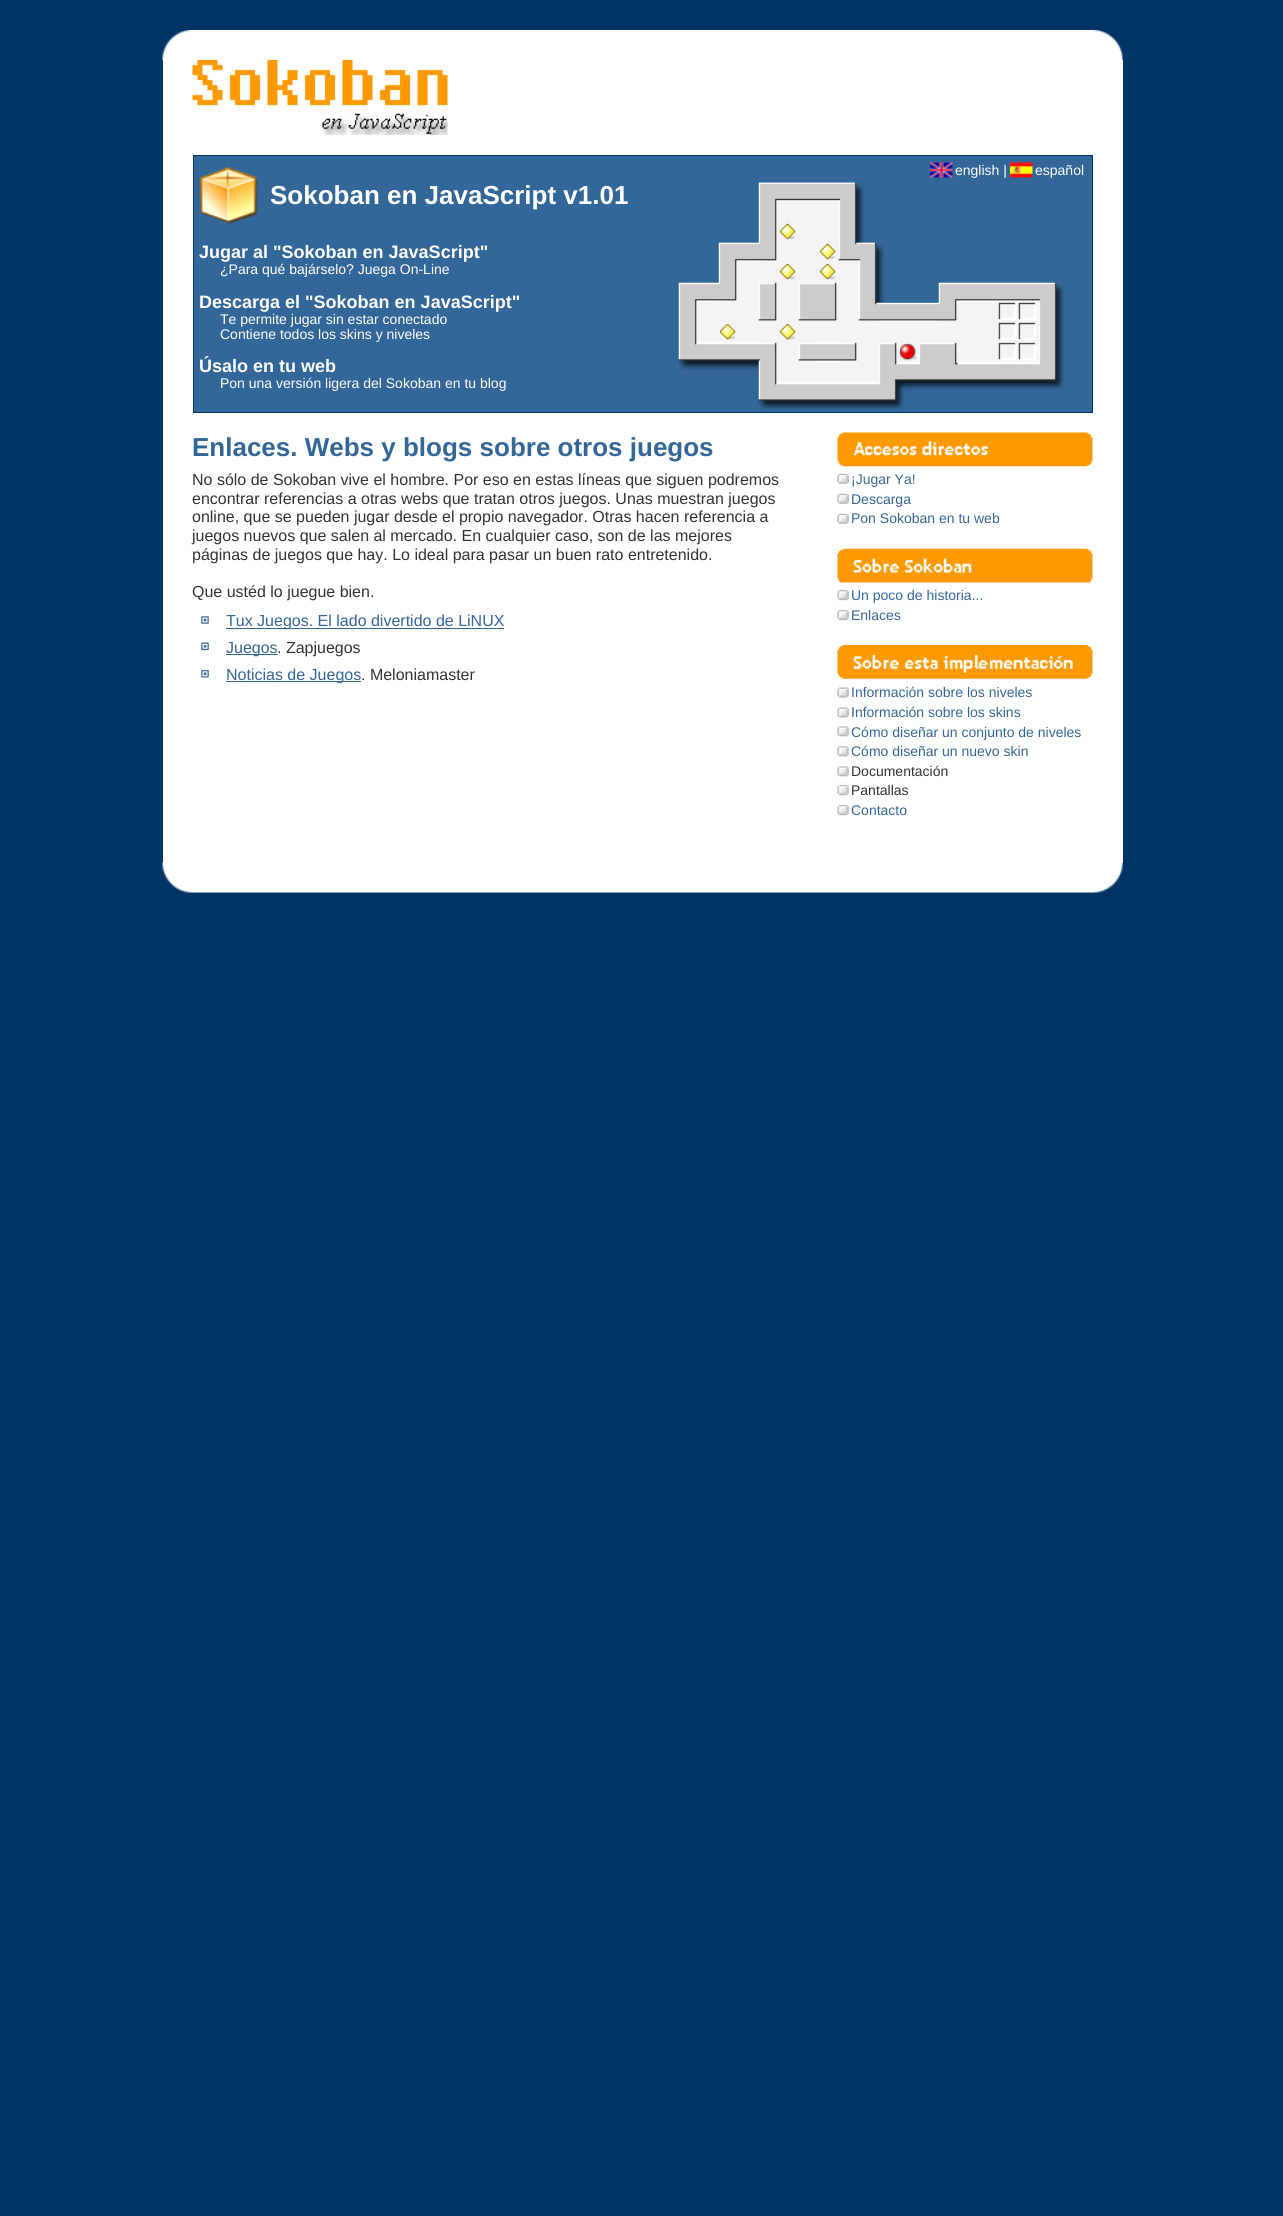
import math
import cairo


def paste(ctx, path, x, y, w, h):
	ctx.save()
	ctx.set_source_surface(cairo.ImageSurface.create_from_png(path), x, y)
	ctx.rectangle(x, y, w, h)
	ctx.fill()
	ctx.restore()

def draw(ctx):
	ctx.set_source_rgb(0, 0.2, 0.4)
	ctx.paint()
	paste(ctx, 'media/1.png', 162, 30, 961, 30)
	ctx.set_source_rgb(1, 1, 1)
	ctx.rectangle(163, 60, 960, 803)
	ctx.fill()
	paste(ctx, 'media/2.png', 192, 60, 256, 75)
	ctx.set_source_rgb(0.2, 0.4, 0.6)
	ctx.rectangle(194, 156, 898, 256)
	ctx.fill()
	paste(ctx, 'media/3.png', 678, 182, 386, 228)
	ctx.rectangle(193.5, 155.5, 899, 257)
	ctx.set_source_rgb(0, 0.2, 0.4)
	ctx.set_line_width(1)
	ctx.stroke()
	paste(ctx, 'media/4.png', 930, 162, 23, 16)
	ctx.select_font_face('Liberation Sans')
	ctx.set_font_size(14)
	ctx.set_source_rgb(1, 1, 1)
	ctx.move_to(955, 175)
	ctx.show_text('english |')
	paste(ctx, 'media/5.png', 1010, 162, 23, 16)
	ctx.move_to(1035, 175)
	ctx.show_text('español')
	paste(ctx, 'media/6.png', 200, 167, 58, 57)
	ctx.select_font_face('Liberation Sans', cairo.FONT_SLANT_NORMAL, cairo.FONT_WEIGHT_BOLD)
	ctx.set_font_size(26)
	ctx.move_to(270, 204)
	ctx.show_text('Sokoban en JavaScript v1.01')
	ctx.set_font_size(18)
	ctx.move_to(199, 258)
	ctx.show_text('Jugar al "Sokoban en JavaScript"')
	ctx.select_font_face('Liberation Sans')
	ctx.set_font_size(14)
	ctx.move_to(220, 274)
	ctx.show_text('¿Para qué bajárselo? Juega On-Line')
	ctx.select_font_face('Liberation Sans', cairo.FONT_SLANT_NORMAL, cairo.FONT_WEIGHT_BOLD)
	ctx.set_font_size(18)
	ctx.move_to(199, 308)
	ctx.show_text('Descarga el "Sokoban en JavaScript"')
	ctx.select_font_face('Liberation Sans')
	ctx.set_font_size(14)
	ctx.move_to(220, 324)
	ctx.show_text('Te permite jugar sin estar conectado')
	ctx.move_to(220, 339)
	ctx.show_text('Contiene todos los skins y niveles')
	ctx.select_font_face('Liberation Sans', cairo.FONT_SLANT_NORMAL, cairo.FONT_WEIGHT_BOLD)
	ctx.set_font_size(18)
	ctx.move_to(199, 372)
	ctx.show_text('Úsalo en tu web')
	ctx.select_font_face('Liberation Sans')
	ctx.set_font_size(14)
	ctx.move_to(220, 388)
	ctx.show_text('Pon una versión ligera del Sokoban en tu blog')
	ctx.select_font_face('Liberation Sans', cairo.FONT_SLANT_NORMAL, cairo.FONT_WEIGHT_BOLD)
	ctx.set_font_size(26)
	ctx.set_source_rgb(0.2, 0.4, 0.6)
	ctx.move_to(192, 456)
	ctx.show_text('Enlaces. Webs y blogs sobre otros juegos')
	ctx.select_font_face('Liberation Sans')
	ctx.set_font_size(16)
	ctx.set_source_rgb(0.2, 0.2, 0.2)
	for x, y, s in [
		(192, 485, 'No sólo de Sokoban vive el hombre. Por eso en estas líneas que siguen podremos'),
		(192, 504, 'encontrar referencias a otras webs que tratan otros juegos. Unas muestran juegos'),
		(192, 522, 'online, que se pueden jugar desde el propio navegador. Otras hacen referencia a'),
		(192, 541, 'juegos nuevos que salen al mercado. En cualquier caso, son de las mejores'),
		(192, 560, 'páginas de juegos que hay. Lo ideal para pasar un buen rato entretenido.'),
		(192, 597, 'Que ustéd lo juegue bien.'),
	]:
		ctx.move_to(x, y)
		ctx.show_text(s)
	paste(ctx, 'media/7.png', 201, 616, 8, 8)
	ctx.set_source_rgb(0.2, 0.4, 0.6)
	ctx.rectangle(226, 628, 278, 1)
	ctx.fill()
	ctx.move_to(226, 626)
	ctx.show_text('Tux Juegos. El lado divertido de LiNUX')
	paste(ctx, 'media/8.png', 201, 642, 8, 9)
	ctx.rectangle(226, 654, 52, 1)
	ctx.fill()
	ctx.move_to(226, 653)
	ctx.show_text('Juegos')
	ctx.set_source_rgb(0.2, 0.2, 0.2)
	ctx.move_to(277, 653)
	ctx.show_text('. Zapjuegos')
	paste(ctx, 'media/9.png', 201, 669, 8, 9)
	ctx.set_source_rgb(0.2, 0.4, 0.6)
	ctx.rectangle(226, 681, 135, 1)
	ctx.fill()
	ctx.move_to(226, 680)
	ctx.show_text('Noticias de Juegos')
	ctx.set_source_rgb(0.2, 0.2, 0.2)
	ctx.move_to(361, 680)
	ctx.show_text('. Meloniamaster')
	paste(ctx, 'media/10.png', 837, 432, 256, 35)
	paste(ctx, 'media/11.png', 837, 473, 12, 11)
	ctx.set_font_size(14)
	ctx.set_source_rgb(0.2, 0.4, 0.6)
	ctx.move_to(851, 484)
	ctx.show_text('¡Jugar Ya!')
	paste(ctx, 'media/11.png', 837, 493, 12, 11)
	ctx.move_to(851, 504)
	ctx.show_text('Descarga')
	paste(ctx, 'media/12.png', 837, 513, 12, 11)
	ctx.move_to(851, 523)
	ctx.show_text('Pon Sokoban en tu web')
	paste(ctx, 'media/13.png', 837, 548, 256, 35)
	paste(ctx, 'media/14.png', 837, 589, 12, 12)
	ctx.move_to(851, 600)
	ctx.show_text('Un poco de historia...')
	paste(ctx, 'media/14.png', 837, 609, 12, 12)
	ctx.move_to(851, 620)
	ctx.show_text('Enlaces')
	paste(ctx, 'media/15.png', 837, 645, 256, 34)
	paste(ctx, 'media/16.png', 837, 687, 12, 11)
	ctx.move_to(851, 697)
	ctx.show_text('Información sobre los niveles')
	paste(ctx, 'media/16.png', 837, 707, 12, 11)
	ctx.move_to(851, 717)
	ctx.show_text('Información sobre los skins')
	paste(ctx, 'media/17.png', 837, 726, 12, 11)
	ctx.move_to(851, 737)
	ctx.show_text('Cómo diseñar un conjunto de niveles')
	paste(ctx, 'media/17.png', 837, 746, 12, 11)
	ctx.move_to(851, 756)
	ctx.show_text('Cómo diseñar un nuevo skin')
	paste(ctx, 'media/17.png', 837, 766, 12, 11)
	ctx.set_source_rgb(0.2, 0.2, 0.2)
	ctx.move_to(851, 776)
	ctx.show_text('Documentación')
	paste(ctx, 'media/14.png', 837, 784, 12, 12)
	ctx.move_to(851, 795)
	ctx.show_text('Pantallas')
	paste(ctx, 'media/14.png', 837, 804, 12, 12)
	ctx.set_source_rgb(0.2, 0.4, 0.6)
	ctx.move_to(851, 815)
	ctx.show_text('Contacto')
	paste(ctx, 'media/18.png', 162, 862, 961, 31)


surface = cairo.ImageSurface(cairo.FORMAT_RGB24, 1283, 2216)
ctx = cairo.Context(surface)
options = cairo.FontOptions()
options.set_hint_metrics(cairo.HINT_METRICS_OFF)
options.set_hint_style(cairo.HINT_STYLE_NONE)
ctx.set_font_options(options)
ctx.set_miter_limit(4)
draw(ctx)
surface.write_to_png('image.png')
